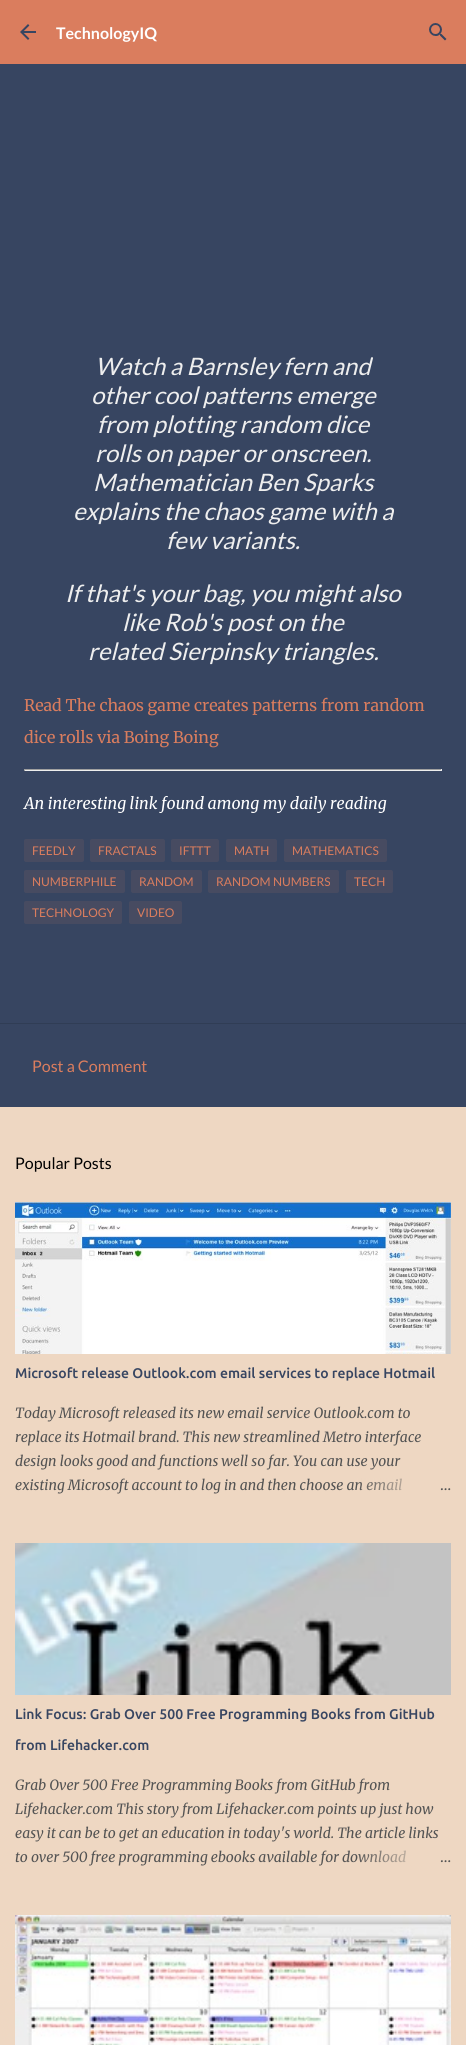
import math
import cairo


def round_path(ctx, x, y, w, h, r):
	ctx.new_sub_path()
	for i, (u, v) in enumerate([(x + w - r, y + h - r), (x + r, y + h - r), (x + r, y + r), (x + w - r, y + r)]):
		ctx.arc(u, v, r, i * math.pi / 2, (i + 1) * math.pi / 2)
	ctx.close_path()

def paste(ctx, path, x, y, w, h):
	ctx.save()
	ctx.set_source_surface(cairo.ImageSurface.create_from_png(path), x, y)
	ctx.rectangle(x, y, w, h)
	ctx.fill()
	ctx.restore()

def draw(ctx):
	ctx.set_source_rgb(0.933, 0.843, 0.761)
	ctx.paint()
	ctx.set_source_rgb(0.855, 0.49, 0.369)
	ctx.rectangle(0, 0, 466, 64)
	ctx.fill()
	paste(ctx, 'media/1.png', 20, 24, 16, 16)
	ctx.select_font_face('Lato', cairo.FONT_SLANT_NORMAL, cairo.FONT_WEIGHT_BOLD)
	ctx.set_font_size(16)
	ctx.set_source_rgb(1, 1, 1)
	ctx.move_to(56, 39)
	ctx.show_text('TechnologyIQ')
	paste(ctx, 'media/2.png', 429, 23, 18, 18)
	ctx.set_source_rgb(0.216, 0.271, 0.38)
	ctx.rectangle(0, 64, 466, 959)
	ctx.fill()
	ctx.select_font_face('Lato', cairo.FONT_SLANT_ITALIC)
	ctx.set_font_size(24)
	ctx.set_source_rgb(0.933, 0.933, 0.933)
	for x, y, s in [
		(95, 375, 'Watch a Barnsley fern and'),
		(91, 404, 'other cool patterns emerge'),
		(97, 433, 'from plotting random dice'),
		(95, 462, 'rolls on paper or onscreen.'),
		(93, 491, 'Mathematician Ben Sparks'),
		(73, 520, 'explains the chaos game with a'),
		(166, 549, 'few variants.'),
		(65, 602, 'If that\'s your bag, you might also'),
		(122, 631, 'like Rob\'s post on the'),
		(88, 660, 'related Sierpinsky triangles.'),
	]:
		ctx.move_to(x, y)
		ctx.show_text(s)
	ctx.select_font_face('Merriweather Light')
	ctx.set_font_size(16)
	ctx.set_source_rgb(0.855, 0.49, 0.369)
	ctx.move_to(24, 711)
	ctx.show_text('Read The chaos game creates patterns from random')
	ctx.move_to(24, 743)
	ctx.show_text('dice rolls via Boing Boing')
	ctx.set_source_rgb(0.624, 0.624, 0.624)
	ctx.rectangle(24, 769, 418, 1)
	ctx.fill()
	ctx.set_source_rgb(0.933, 0.933, 0.933)
	ctx.rectangle(441, 769, 1, 2)
	ctx.rectangle(24, 770, 418, 1)
	ctx.fill()
	ctx.set_source_rgb(0.624, 0.624, 0.624)
	ctx.rectangle(24, 769, 1, 2)
	ctx.fill()
	ctx.select_font_face('Merriweather', cairo.FONT_SLANT_ITALIC)
	ctx.set_source_rgb(1, 1, 1)
	ctx.move_to(24, 809)
	ctx.show_text('An interesting link found among my daily reading')
	ctx.set_source_rgb(0.278, 0.294, 0.38)
	round_path(ctx, 24, 839, 60, 23, 2)
	ctx.fill()
	ctx.select_font_face('Lato')
	ctx.set_font_size(12)
	ctx.set_source_rgb(0.855, 0.49, 0.369)
	ctx.move_to(32, 855)
	ctx.show_text('FEEDLY')
	ctx.set_source_rgb(0.278, 0.294, 0.38)
	round_path(ctx, 90, 839, 75, 23, 2)
	ctx.fill()
	ctx.set_source_rgb(0.855, 0.49, 0.369)
	ctx.move_to(98, 855)
	ctx.show_text('FRACTALS')
	ctx.set_source_rgb(0.278, 0.294, 0.38)
	round_path(ctx, 171, 839, 48, 23, 2)
	ctx.fill()
	ctx.set_source_rgb(0.855, 0.49, 0.369)
	ctx.move_to(179, 855)
	ctx.show_text('IFTTT')
	ctx.set_source_rgb(0.278, 0.294, 0.38)
	round_path(ctx, 226, 839, 51, 23, 2)
	ctx.fill()
	ctx.set_source_rgb(0.855, 0.49, 0.369)
	ctx.move_to(234, 855)
	ctx.show_text('MATH')
	ctx.set_source_rgb(0.278, 0.294, 0.38)
	round_path(ctx, 284, 839, 103, 23, 2)
	ctx.fill()
	ctx.set_source_rgb(0.855, 0.49, 0.369)
	ctx.move_to(292, 855)
	ctx.show_text('MATHEMATICS')
	ctx.set_source_rgb(0.278, 0.294, 0.38)
	round_path(ctx, 24, 870, 101, 23, 2)
	ctx.fill()
	ctx.set_source_rgb(0.855, 0.49, 0.369)
	ctx.move_to(32, 886)
	ctx.show_text('NUMBERPHILE')
	ctx.set_source_rgb(0.278, 0.294, 0.38)
	round_path(ctx, 131, 870, 71, 23, 2)
	ctx.fill()
	ctx.set_source_rgb(0.855, 0.49, 0.369)
	ctx.move_to(139, 886)
	ctx.show_text('RANDOM')
	ctx.set_source_rgb(0.278, 0.294, 0.38)
	round_path(ctx, 208, 870, 131, 23, 2)
	ctx.fill()
	ctx.set_source_rgb(0.855, 0.49, 0.369)
	ctx.move_to(216, 886)
	ctx.show_text('RANDOM NUMBERS')
	ctx.set_source_rgb(0.278, 0.294, 0.38)
	round_path(ctx, 346, 870, 47, 23, 2)
	ctx.fill()
	ctx.set_source_rgb(0.855, 0.49, 0.369)
	ctx.move_to(354, 886)
	ctx.show_text('TECH')
	ctx.set_source_rgb(0.278, 0.294, 0.38)
	round_path(ctx, 24, 901, 98, 23, 2)
	ctx.fill()
	ctx.set_source_rgb(0.855, 0.49, 0.369)
	ctx.move_to(32, 917)
	ctx.show_text('TECHNOLOGY')
	ctx.set_source_rgb(0.278, 0.294, 0.38)
	round_path(ctx, 129, 901, 53, 23, 2)
	ctx.fill()
	ctx.set_source_rgb(0.855, 0.49, 0.369)
	ctx.move_to(137, 917)
	ctx.show_text('VIDEO')
	ctx.set_source_rgb(0.216, 0.271, 0.38)
	ctx.rectangle(0, 1024, 466, 83)
	ctx.fill()
	ctx.set_source_rgb(0.188, 0.239, 0.333)
	ctx.rectangle(0, 1023, 466, 1)
	ctx.fill()
	ctx.set_font_size(16)
	ctx.set_source_rgb(0.855, 0.49, 0.369)
	ctx.move_to(32, 1072)
	ctx.show_text('Post a Comment')
	ctx.set_source_rgb(0, 0, 0)
	ctx.move_to(15, 1169)
	ctx.show_text('Popular Posts')
	paste(ctx, 'media/3.png', 15, 1202, 436, 152)
	ctx.select_font_face('Ubuntu Medium')
	ctx.set_font_size(14)
	ctx.set_source_rgb(0.216, 0.271, 0.38)
	ctx.move_to(15, 1378)
	ctx.show_text('Microsoft release Outlook.com email services to replace Hotmail')
	ctx.select_font_face('Merriweather', cairo.FONT_SLANT_ITALIC)
	ctx.set_source_rgb(0.325, 0.325, 0.325)
	for x, y, s in [
		(15, 1418, 'Today Microsoft released its new email service Outlook.com to'),
		(15, 1442, 'replace its Hotmail brand. This new streamlined Metro interface'),
		(15, 1466, 'design looks good and functions well so far. You can use your'),
		(15, 1490, 'existing Microsoft account to log in and then choose an email'),
	]:
		ctx.move_to(x, y)
		ctx.show_text(s)
	gradient = cairo.LinearGradient(451, 1485, 355, 1485)
	gradient.add_color_stop_rgba(0, 0.933, 0.843, 0.761, 1)
	gradient.add_color_stop_rgba(0.2, 0.933, 0.843, 0.761, 1)
	gradient.add_color_stop_rgba(1, 0.933, 0.843, 0.761, 0)
	ctx.set_source(gradient)
	ctx.rectangle(357, 1478, 45, 13)
	ctx.fill()
	ctx.select_font_face('Merriweather Light')
	ctx.set_source_rgb(0.325, 0.325, 0.325)
	ctx.move_to(440, 1490)
	ctx.show_text('…')
	paste(ctx, 'media/4.png', 15, 1543, 436, 152)
	ctx.select_font_face('Ubuntu Medium')
	ctx.set_source_rgb(0.216, 0.271, 0.38)
	ctx.move_to(15, 1719)
	ctx.show_text('Link Focus: Grab Over 500 Free Programming Books from GitHub')
	ctx.move_to(15, 1750)
	ctx.show_text('from Lifehacker.com')
	ctx.select_font_face('Merriweather', cairo.FONT_SLANT_ITALIC)
	ctx.set_source_rgb(0.325, 0.325, 0.325)
	for x, y, s in [
		(15, 1790, 'Grab Over 500 Free Programming Books from GitHub from'),
		(15, 1814, 'Lifehacker.com This story from Lifehacker.com points up just how'),
		(15, 1838, 'easy it can be to get an education in today\'s world. The article links'),
		(15, 1862, 'to over 500 free programming ebooks available for download'),
	]:
		ctx.move_to(x, y)
		ctx.show_text(s)
	gradient = cairo.LinearGradient(451, 1857, 355, 1857)
	gradient.add_color_stop_rgba(0, 0.933, 0.843, 0.761, 1)
	gradient.add_color_stop_rgba(0.2, 0.933, 0.843, 0.761, 1)
	gradient.add_color_stop_rgba(1, 0.933, 0.843, 0.761, 0)
	ctx.set_source(gradient)
	ctx.rectangle(357, 1850, 49, 13)
	ctx.fill()
	ctx.select_font_face('Merriweather Light')
	ctx.set_source_rgb(0.325, 0.325, 0.325)
	ctx.move_to(440, 1862)
	ctx.show_text('…')
	paste(ctx, 'media/5.png', 15, 1915, 436, 130)


surface = cairo.ImageSurface(cairo.FORMAT_RGB24, 466, 2045)
ctx = cairo.Context(surface)
options = cairo.FontOptions()
options.set_hint_metrics(cairo.HINT_METRICS_OFF)
options.set_hint_style(cairo.HINT_STYLE_NONE)
ctx.set_font_options(options)
ctx.set_miter_limit(4)
draw(ctx)
surface.write_to_png('image.png')
